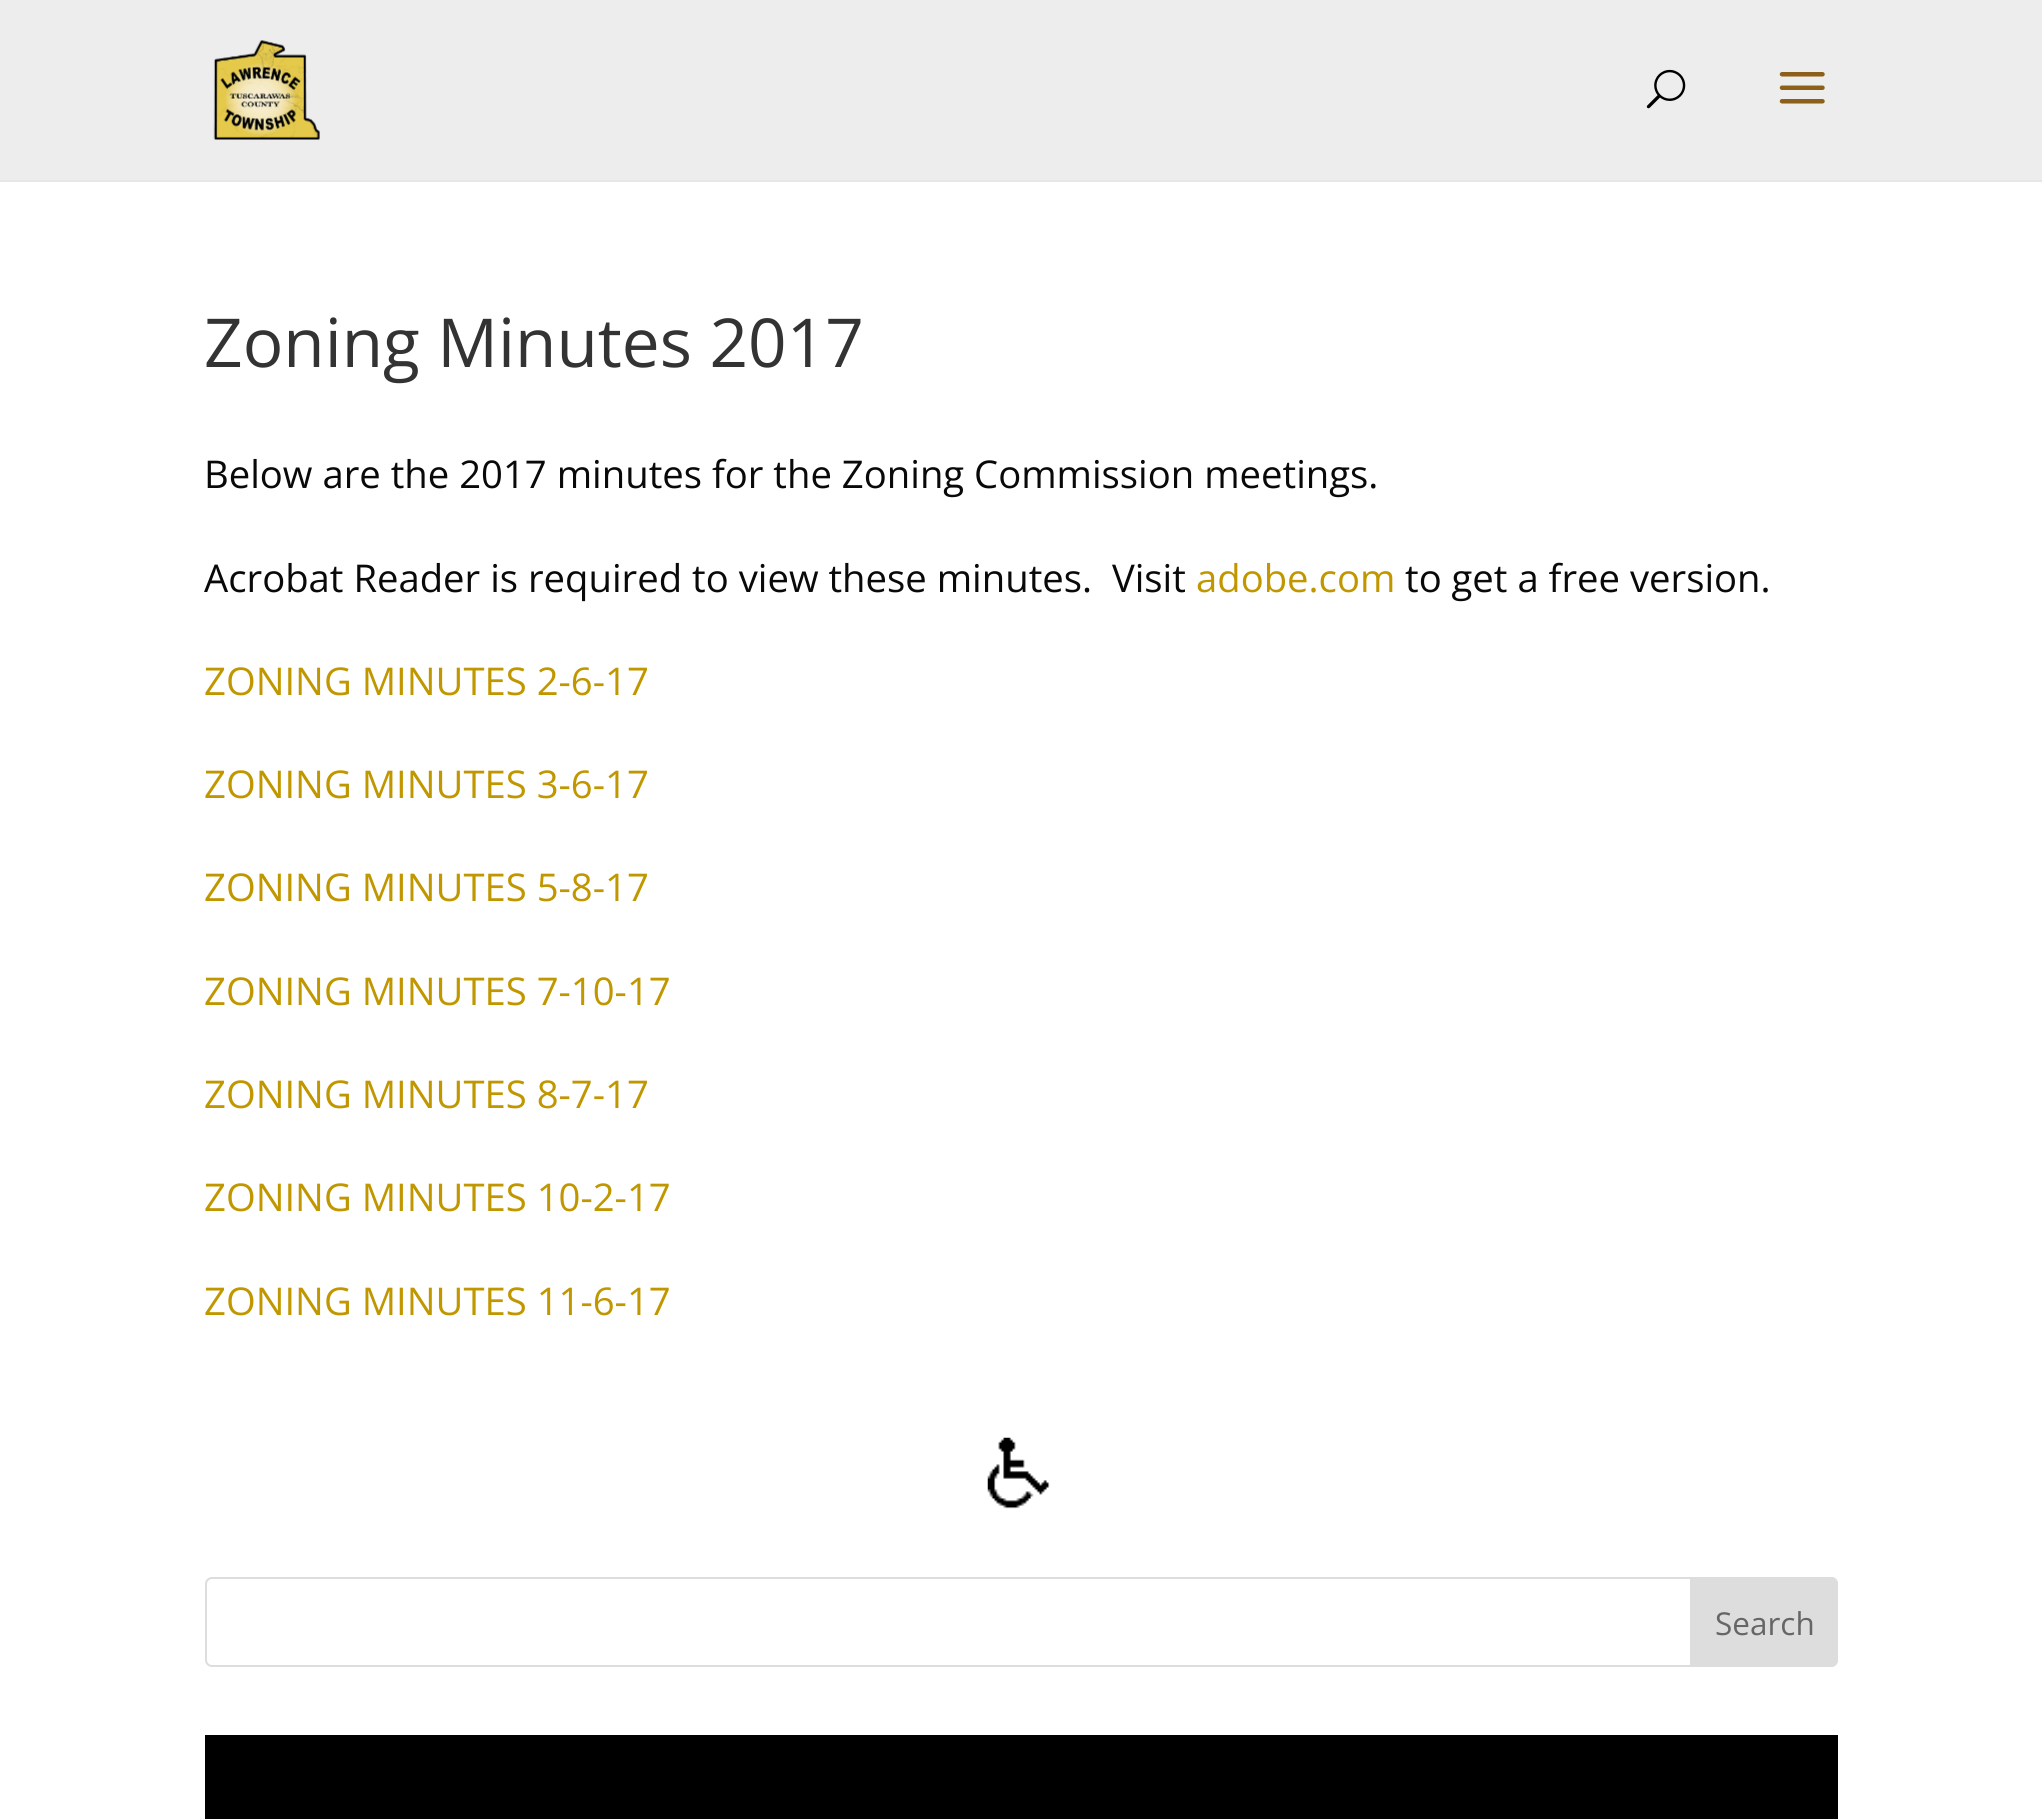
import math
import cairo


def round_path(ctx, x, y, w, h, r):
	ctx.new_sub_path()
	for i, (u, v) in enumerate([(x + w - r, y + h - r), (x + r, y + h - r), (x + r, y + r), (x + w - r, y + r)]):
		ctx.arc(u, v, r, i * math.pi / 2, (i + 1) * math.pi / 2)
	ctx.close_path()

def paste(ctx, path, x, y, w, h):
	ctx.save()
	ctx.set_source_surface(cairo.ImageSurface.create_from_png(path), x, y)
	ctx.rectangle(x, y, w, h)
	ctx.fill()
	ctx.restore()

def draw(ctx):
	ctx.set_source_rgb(1, 1, 1)
	ctx.paint()
	ctx.set_source_rgb(0.902, 0.902, 0.902)
	ctx.rectangle(0, 180, 2042, 2)
	ctx.fill()
	ctx.set_source_rgb(0.929, 0.929, 0.929)
	ctx.rectangle(0, 0, 2042, 180)
	ctx.fill()
	paste(ctx, 'media/1.png', 213, 40, 107, 100)
	paste(ctx, 'media/2.png', 1646, 69, 40, 40)
	paste(ctx, 'media/3.png', 1779, 72, 46, 32)
	ctx.select_font_face('Open Sans')
	ctx.set_font_size(67.5)
	ctx.set_source_rgb(0.2, 0.2, 0.2)
	ctx.move_to(204, 367)
	ctx.show_text('Zoning Minutes 2017')
	ctx.set_font_size(38.25)
	ctx.set_source_rgb(0.039, 0.039, 0.039)
	ctx.move_to(204, 488)
	ctx.show_text('Below are the 2017 minutes for the Zoning Commission meetings.')
	ctx.move_to(204, 592)
	ctx.show_text('Acrobat Reader is required to view these minutes.  Visit')
	ctx.set_source_rgb(0.757, 0.592, 0)
	ctx.move_to(1196, 592)
	ctx.show_text('adobe.com')
	ctx.set_source_rgb(0.039, 0.039, 0.039)
	ctx.move_to(1405, 592)
	ctx.show_text('to get a free version.')
	ctx.set_source_rgb(0.757, 0.592, 0)
	for x, y, s in [
		(204, 695, 'ZONING MINUTES 2-6-17'),
		(204, 798, 'ZONING MINUTES 3-6-17'),
		(204, 901, 'ZONING MINUTES 5-8-17'),
		(204, 1005, 'ZONING MINUTES 7-10-17'),
		(204, 1108, 'ZONING MINUTES 8-7-17'),
		(204, 1211, 'ZONING MINUTES 10-2-17'),
		(204, 1315, 'ZONING MINUTES 11-6-17'),
	]:
		ctx.move_to(x, y)
		ctx.show_text(s)
	paste(ctx, 'media/4.png', 987, 1437, 63, 72)
	round_path(ctx, 206, 1578, 1631, 88, 6)
	ctx.set_source_rgb(0.867, 0.867, 0.867)
	ctx.stroke()
	ctx.new_path()
	ctx.move_to(1691, 1578)
	ctx.line_to(1831, 1578)
	ctx.curve_to(1834.5, 1578, 1837, 1580.5, 1837, 1584)
	ctx.line_to(1837, 1660)
	ctx.curve_to(1837, 1663.5, 1834.5, 1666, 1831, 1666)
	ctx.line_to(1691, 1666)
	ctx.close_path()
	ctx.fill_preserve()
	ctx.stroke()
	ctx.set_font_size(31.5)
	ctx.set_source_rgb(0.4, 0.4, 0.4)
	ctx.move_to(1715, 1635)
	ctx.show_text('Search')
	ctx.set_source_rgb(0, 0, 0)
	ctx.rectangle(205, 1735, 1633, 84)
	ctx.fill()


surface = cairo.ImageSurface(cairo.FORMAT_RGB24, 2042, 1819)
ctx = cairo.Context(surface)
options = cairo.FontOptions()
options.set_hint_metrics(cairo.HINT_METRICS_OFF)
options.set_hint_style(cairo.HINT_STYLE_NONE)
ctx.set_font_options(options)
ctx.set_miter_limit(4)
draw(ctx)
surface.write_to_png('image.png')
